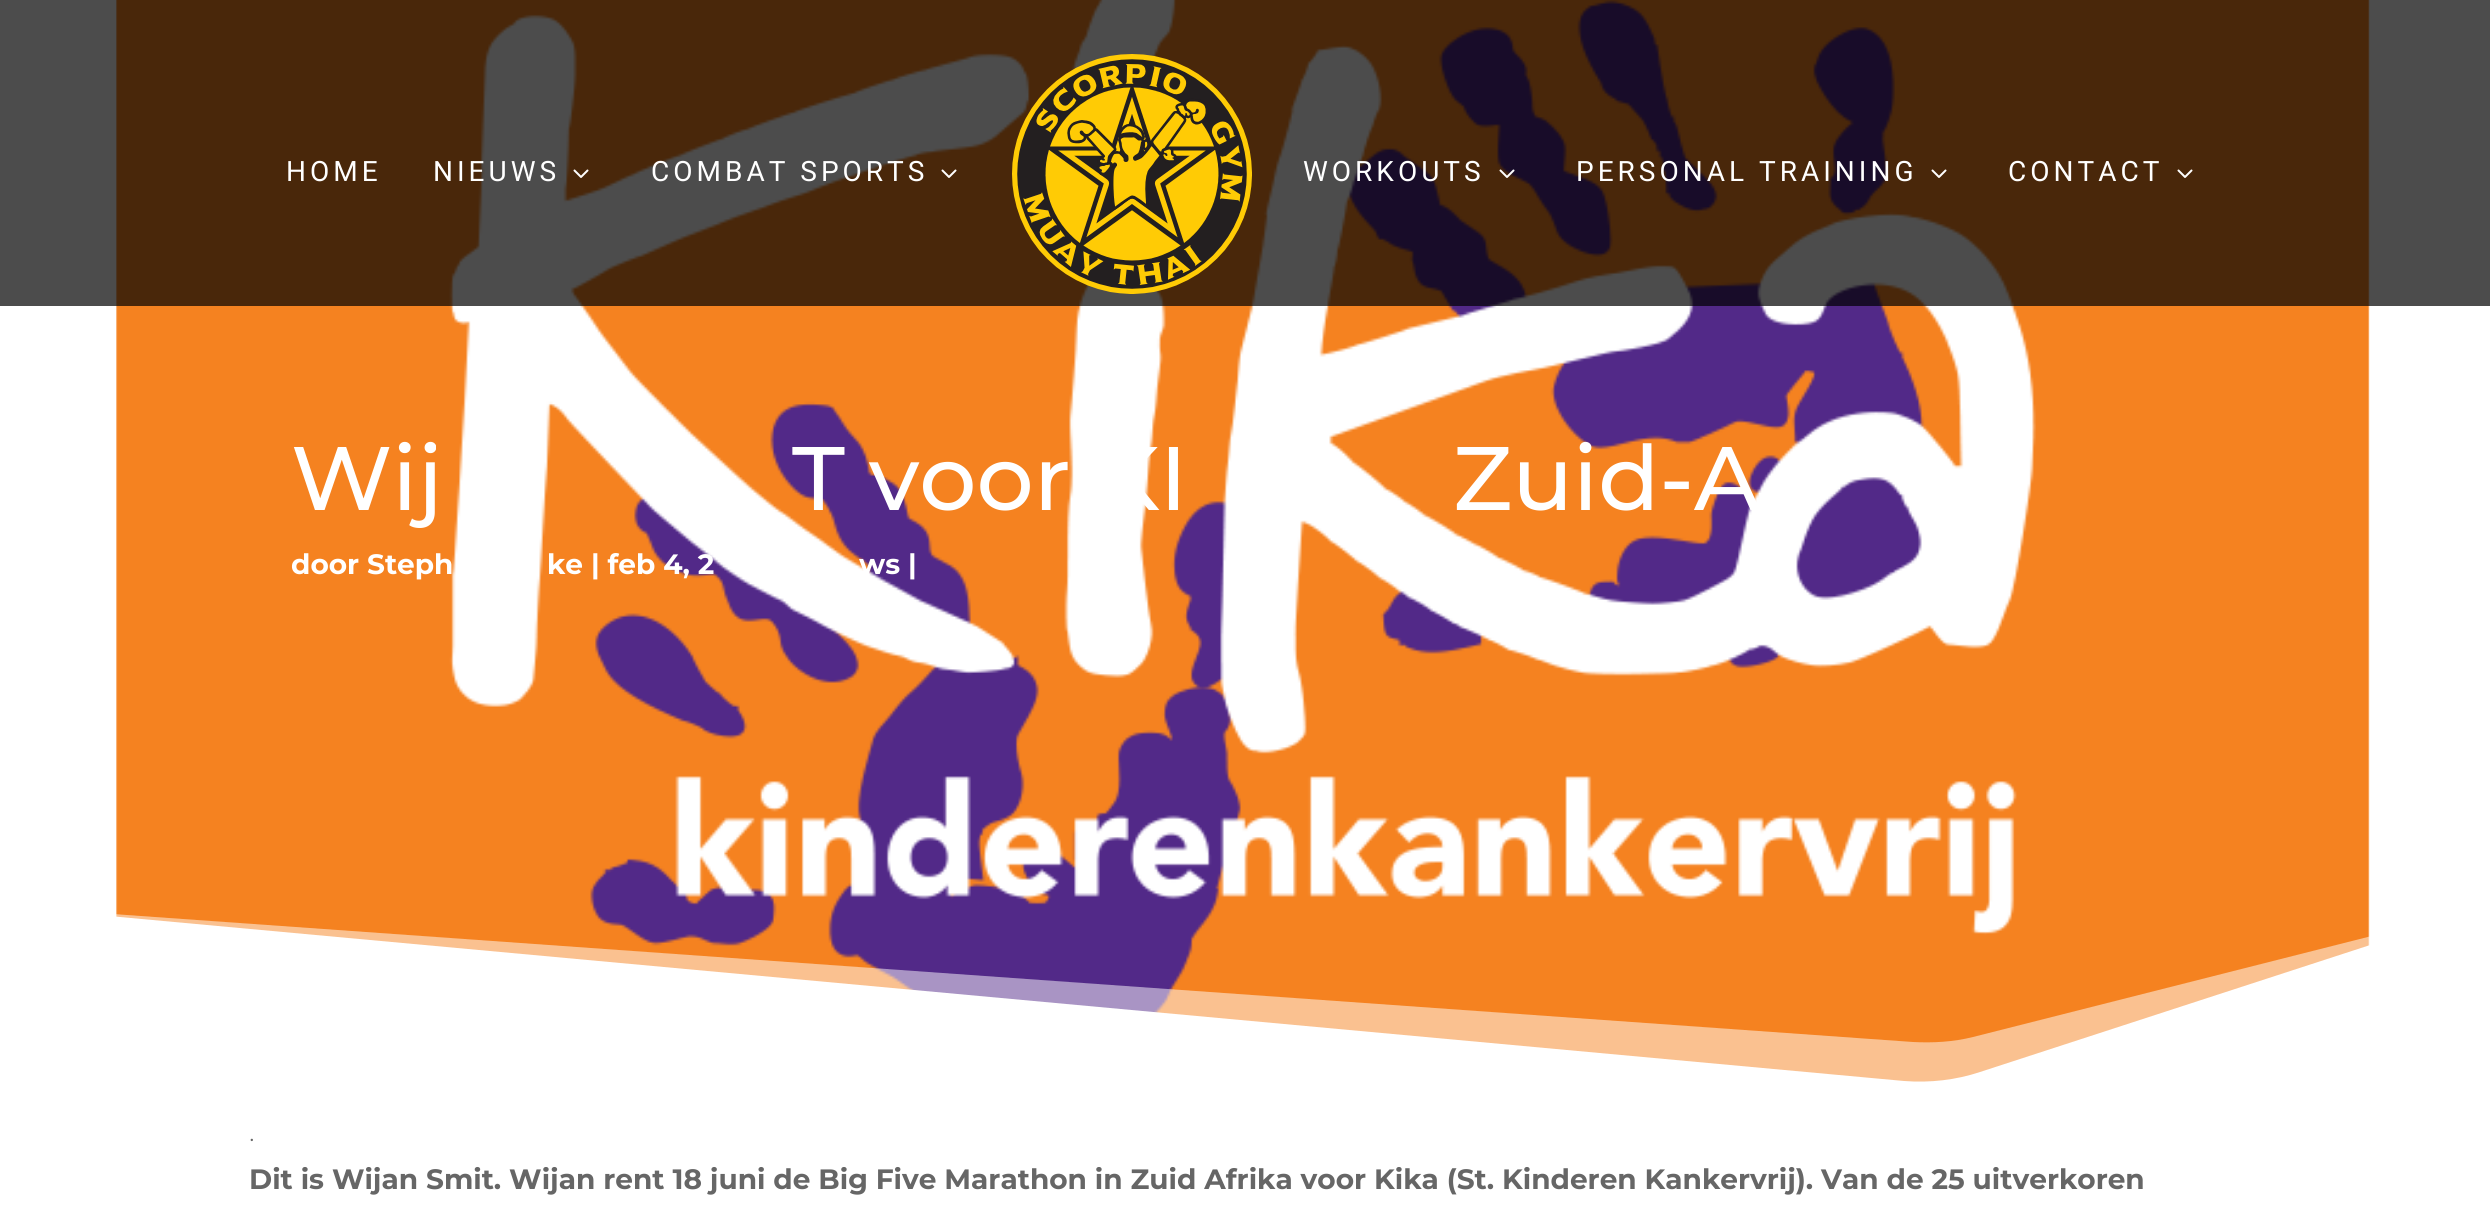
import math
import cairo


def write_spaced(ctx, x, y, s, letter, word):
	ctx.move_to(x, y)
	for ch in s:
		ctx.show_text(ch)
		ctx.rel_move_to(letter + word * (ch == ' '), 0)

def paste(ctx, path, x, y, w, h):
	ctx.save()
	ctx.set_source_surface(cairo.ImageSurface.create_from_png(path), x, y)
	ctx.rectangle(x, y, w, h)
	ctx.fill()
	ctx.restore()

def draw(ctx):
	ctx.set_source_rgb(1, 1, 1)
	ctx.paint()
	paste(ctx, 'media/4.png', 116, 0, 2254, 946)
	paste(ctx, 'media/5.png', 116, 0, 2254, 1082)
	ctx.set_source_rgba(0, 0, 0, 0.7)
	ctx.rectangle(0, 0, 2490, 306)
	ctx.fill()
	ctx.select_font_face('Roboto')
	ctx.set_font_size(28)
	ctx.set_source_rgb(1, 1, 1)
	write_spaced(ctx, 286, 181, 'HOME', 4, 0)
	write_spaced(ctx, 433, 181, 'NIEUWS', 4, 0)
	paste(ctx, 'media/1.png', 573, 169, 16, 9)
	write_spaced(ctx, 651, 181, 'COMBAT SPORTS', 4, 0)
	paste(ctx, 'media/1.png', 941, 169, 16, 9)
	paste(ctx, 'media/2.png', 1012, 54, 240, 240)
	write_spaced(ctx, 1303, 181, 'WORKOUTS', 4, 0)
	paste(ctx, 'media/3.png', 1499, 169, 16, 9)
	write_spaced(ctx, 1576, 181, 'PERSONAL TRAINING', 4, 0)
	paste(ctx, 'media/1.png', 1931, 169, 16, 9)
	write_spaced(ctx, 2008, 181, 'CONTACT', 4, 0)
	paste(ctx, 'media/1.png', 2177, 169, 16, 9)
	ctx.select_font_face('Montserrat Medium')
	ctx.set_font_size(90)
	for x, y, s in [
		(291, 510, 'Wij'),
		(792, 510, 'T voor KI'),
		(1453, 510, 'Zuid-A'),
	]:
		ctx.move_to(x, y)
		ctx.show_text(s)
	ctx.select_font_face('Montserrat', cairo.FONT_SLANT_NORMAL, cairo.FONT_WEIGHT_BOLD)
	ctx.set_font_size(28)
	for x, y, s in [
		(291, 574, 'door Steph'),
		(547, 574, 'ke | feb 4, 2'),
		(859, 574, 'ws |'),
	]:
		ctx.move_to(x, y)
		ctx.show_text(s)
	ctx.set_source_rgba(1, 1, 1, 0.5)
	ctx.new_path()
	ctx.move_to(2490, 906)
	ctx.line_to(1973, 1037)
	ctx.curve_to(1953, 1042, 1933, 1043, 1913, 1042)
	ctx.line_to(0, 906)
	ctx.line_to(0, 1106)
	ctx.line_to(2490, 1106)
	ctx.close_path()
	ctx.fill()
	ctx.set_source_rgb(1, 1, 1)
	ctx.new_path()
	ctx.move_to(2490, 906)
	ctx.line_to(1980, 1072)
	ctx.curve_to(1956, 1080, 1930, 1083, 1904, 1081)
	ctx.line_to(0, 906)
	ctx.line_to(0, 1106)
	ctx.line_to(2490, 1106)
	ctx.close_path()
	ctx.fill()
	ctx.select_font_face('Montserrat Light')
	ctx.set_source_rgb(0.4, 0.4, 0.4)
	ctx.move_to(249, 1141)
	ctx.show_text('.')
	ctx.select_font_face('Montserrat', cairo.FONT_SLANT_NORMAL, cairo.FONT_WEIGHT_BOLD)
	ctx.move_to(249, 1189)
	ctx.show_text('Dit is Wijan Smit. Wijan rent 18 juni de Big Five Marathon in Zuid Afrika voor Kika (St. Kinderen Kankervrij). Van de 25 uitverkoren')


surface = cairo.ImageSurface(cairo.FORMAT_RGB24, 2490, 1225)
ctx = cairo.Context(surface)
options = cairo.FontOptions()
options.set_hint_metrics(cairo.HINT_METRICS_OFF)
options.set_hint_style(cairo.HINT_STYLE_NONE)
ctx.set_font_options(options)
ctx.set_miter_limit(4)
draw(ctx)
surface.write_to_png('image.png')
